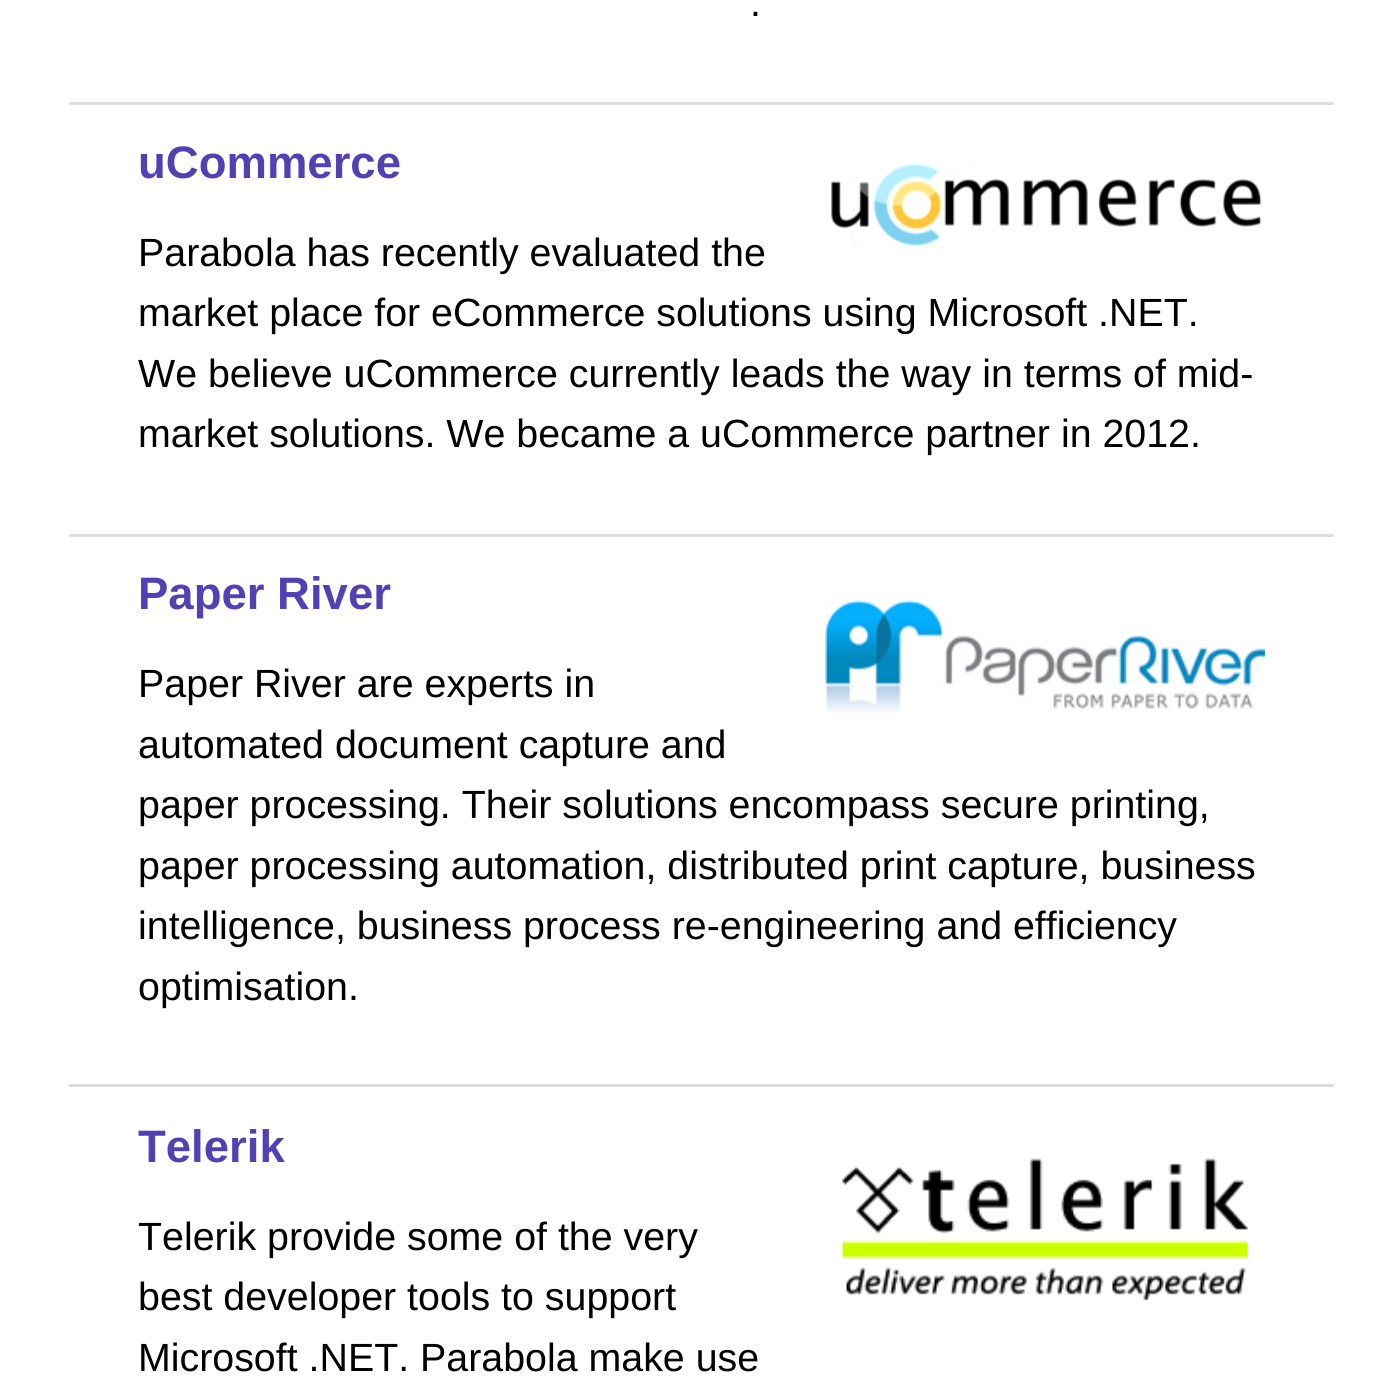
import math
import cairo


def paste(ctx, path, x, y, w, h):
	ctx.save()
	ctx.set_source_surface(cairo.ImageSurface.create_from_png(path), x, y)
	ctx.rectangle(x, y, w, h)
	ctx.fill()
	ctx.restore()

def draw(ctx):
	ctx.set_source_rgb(1, 1, 1)
	ctx.paint()
	ctx.select_font_face('Liberation Sans')
	ctx.set_font_size(39.35)
	ctx.set_source_rgb(0, 0, 0)
	ctx.move_to(750, 16)
	ctx.show_text('.')
	ctx.set_source_rgb(0.867, 0.867, 0.867)
	ctx.rectangle(69, 102, 1265, 3)
	ctx.fill()
	ctx.select_font_face('Liberation Sans', cairo.FONT_SLANT_NORMAL, cairo.FONT_WEIGHT_BOLD)
	ctx.set_font_size(45.5)
	ctx.set_source_rgb(0.322, 0.255, 0.706)
	ctx.move_to(138, 178)
	ctx.show_text('uCommerce')
	paste(ctx, 'media/1.png', 831, 160, 431, 90)
	ctx.select_font_face('Liberation Sans')
	ctx.set_font_size(39.35)
	ctx.set_source_rgb(0, 0, 0)
	for x, y, s in [
		(138, 266, 'Parabola has recently evaluated the'),
		(138, 326, 'market place for eCommerce solutions using Microsoft .NET.'),
		(138, 387, 'We believe uCommerce currently leads the way in terms of mid-'),
		(138, 447, 'market solutions. We became a uCommerce partner in 2012.'),
	]:
		ctx.move_to(x, y)
		ctx.show_text(s)
	ctx.set_source_rgb(0.867, 0.867, 0.867)
	ctx.rectangle(69, 534, 1265, 3)
	ctx.fill()
	ctx.select_font_face('Liberation Sans', cairo.FONT_SLANT_NORMAL, cairo.FONT_WEIGHT_BOLD)
	ctx.set_font_size(45.5)
	ctx.set_source_rgb(0.322, 0.255, 0.706)
	ctx.move_to(138, 609)
	ctx.show_text('Paper River')
	paste(ctx, 'media/2.png', 825, 599, 440, 114)
	ctx.select_font_face('Liberation Sans')
	ctx.set_font_size(39.35)
	ctx.set_source_rgb(0, 0, 0)
	for x, y, s in [
		(138, 697, 'Paper River are experts in'),
		(138, 758, 'automated document capture and'),
		(138, 818, 'paper processing. Their solutions encompass secure printing,'),
		(138, 879, 'paper processing automation, distributed print capture, business'),
		(138, 939, 'intelligence, business process re-engineering and efficiency'),
		(138, 1000, 'optimisation.'),
	]:
		ctx.move_to(x, y)
		ctx.show_text(s)
	ctx.set_source_rgb(0.867, 0.867, 0.867)
	ctx.rectangle(69, 1084, 1265, 3)
	ctx.fill()
	ctx.select_font_face('Liberation Sans', cairo.FONT_SLANT_NORMAL, cairo.FONT_WEIGHT_BOLD)
	ctx.set_font_size(45.5)
	ctx.set_source_rgb(0.322, 0.255, 0.706)
	ctx.move_to(138, 1162)
	ctx.show_text('Telerik')
	ctx.select_font_face('Liberation Sans')
	ctx.set_font_size(39.35)
	ctx.set_source_rgb(0, 0, 0)
	for x, y, s in [
		(138, 1250, 'Telerik provide some of the very'),
		(138, 1310, 'best developer tools to support'),
		(138, 1371, 'Microsoft .NET. Parabola make use'),
	]:
		ctx.move_to(x, y)
		ctx.show_text(s)
	paste(ctx, 'media/3.png', 842, 1158, 406, 143)


surface = cairo.ImageSurface(cairo.FORMAT_RGB24, 1400, 1400)
ctx = cairo.Context(surface)
options = cairo.FontOptions()
options.set_hint_metrics(cairo.HINT_METRICS_OFF)
options.set_hint_style(cairo.HINT_STYLE_NONE)
ctx.set_font_options(options)
ctx.set_miter_limit(4)
draw(ctx)
surface.write_to_png('image.png')
